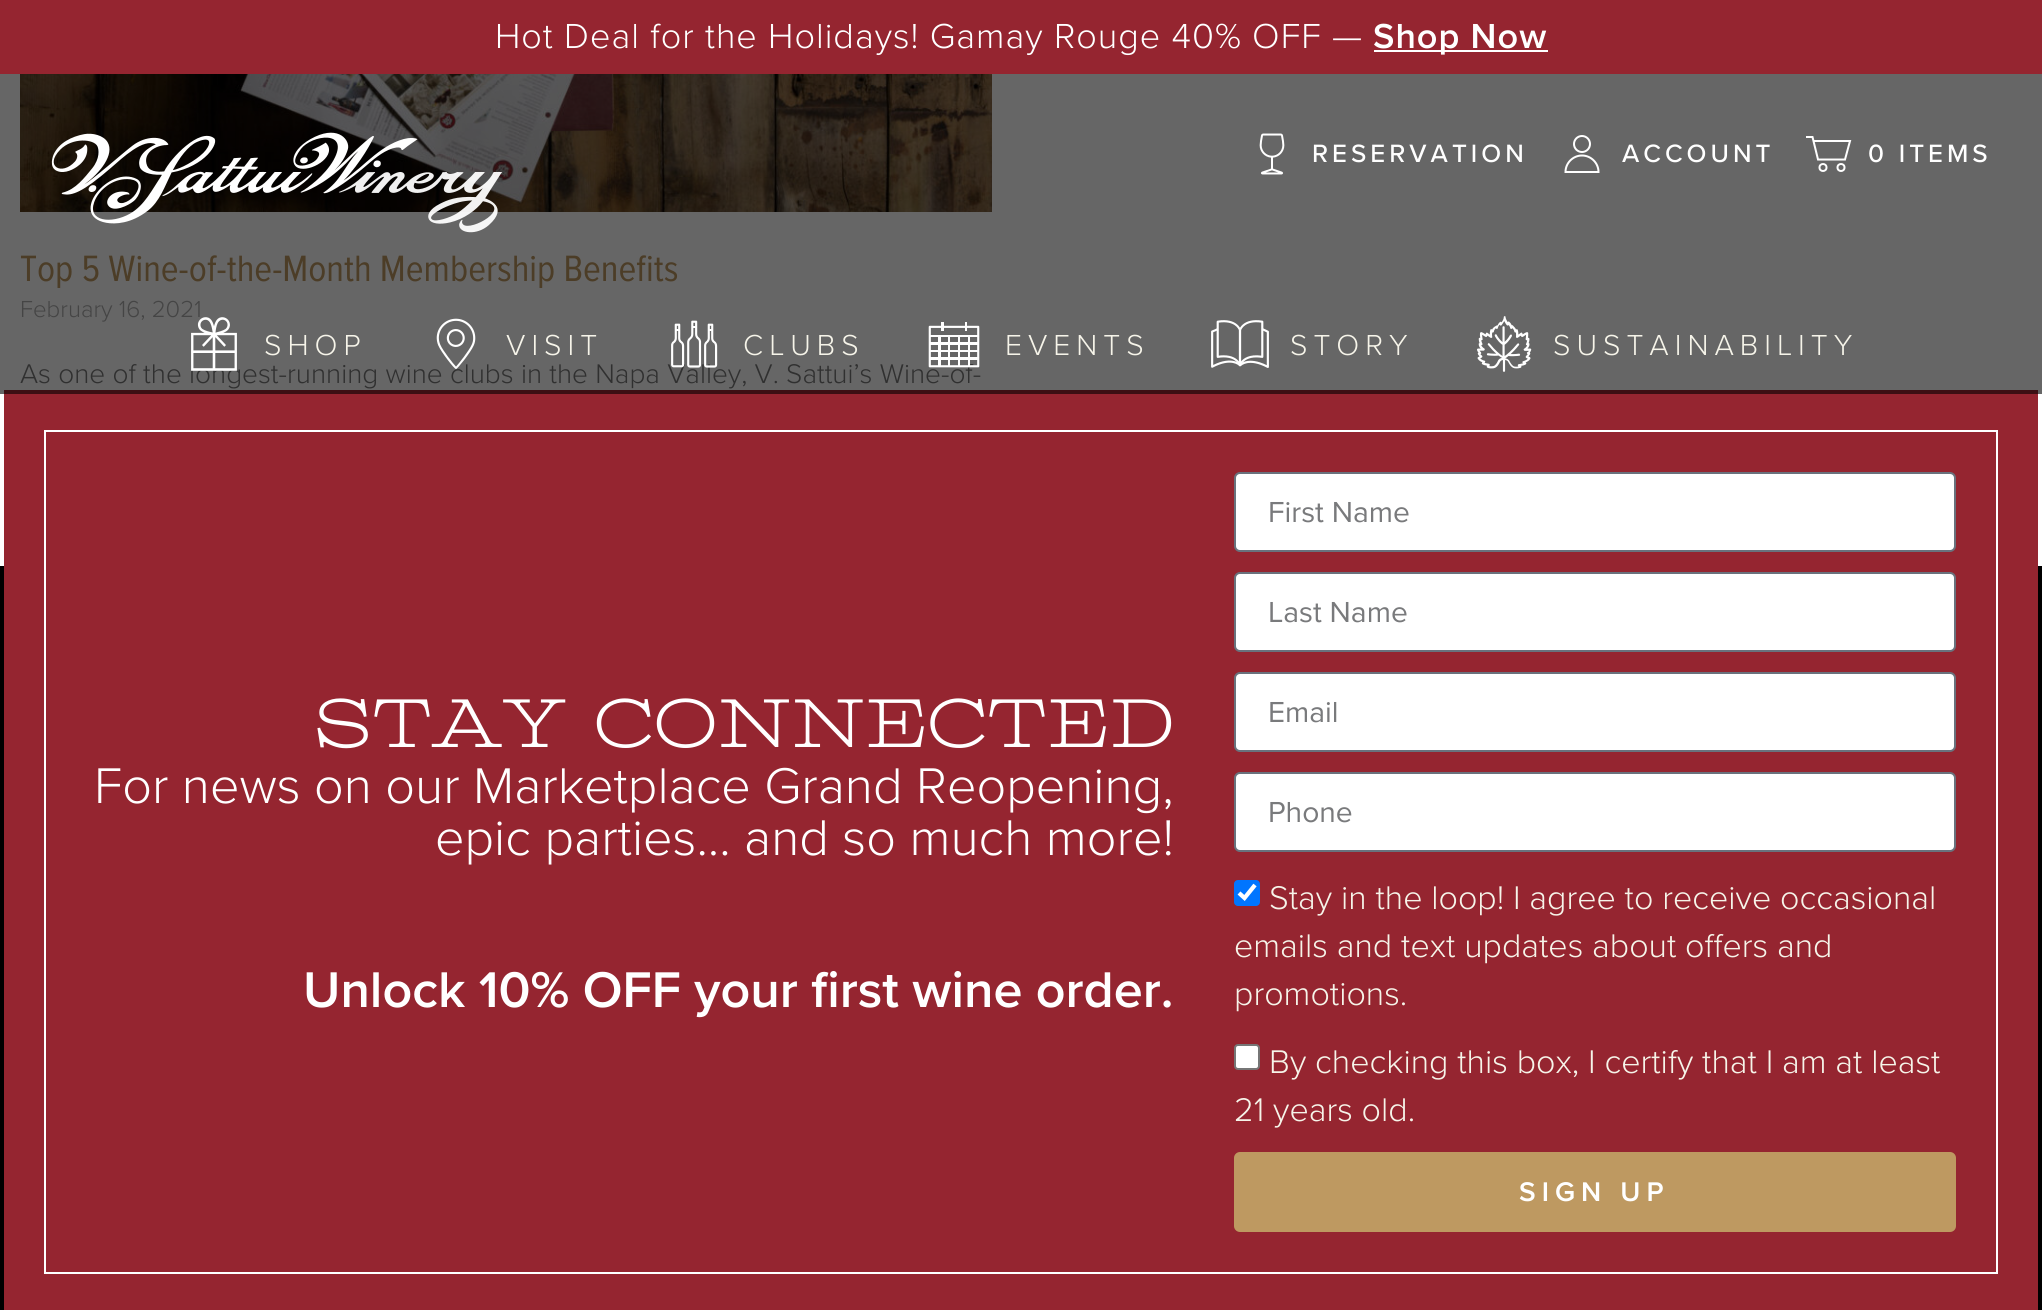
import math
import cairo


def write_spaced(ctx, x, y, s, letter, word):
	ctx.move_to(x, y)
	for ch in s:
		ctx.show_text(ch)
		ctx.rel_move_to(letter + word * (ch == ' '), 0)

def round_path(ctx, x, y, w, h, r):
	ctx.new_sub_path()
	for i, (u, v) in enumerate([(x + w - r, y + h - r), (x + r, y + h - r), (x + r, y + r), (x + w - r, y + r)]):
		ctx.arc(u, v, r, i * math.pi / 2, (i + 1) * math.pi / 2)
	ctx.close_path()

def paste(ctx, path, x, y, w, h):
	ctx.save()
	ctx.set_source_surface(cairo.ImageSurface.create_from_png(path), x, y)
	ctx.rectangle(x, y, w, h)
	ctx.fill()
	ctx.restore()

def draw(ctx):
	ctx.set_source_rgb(1, 1, 1)
	ctx.paint()
	ctx.set_source_rgb(0.4, 0.4, 0.4)
	ctx.rectangle(0, 74, 2042, 320)
	ctx.fill()
	ctx.set_source_rgb(0.584, 0.145, 0.188)
	ctx.rectangle(0, 0, 2042, 74)
	ctx.fill()
	ctx.select_font_face('Proxima Nova Light')
	ctx.set_font_size(36)
	ctx.set_source_rgb(1, 1, 1)
	write_spaced(ctx, 495, 48, 'Hot Deal for the Holidays! Gamay Rouge 40% OFF —', 1, 0)
	ctx.rectangle(1374, 50, 174, 2)
	ctx.fill()
	ctx.select_font_face('Proxima Nova SemiBold')
	write_spaced(ctx, 1373, 48, 'Shop Now', 1, 0)
	paste(ctx, 'media/9.png', 20, 74, 972, 138)
	paste(ctx, 'media/1.png', 51, 132, 451, 101)
	paste(ctx, 'media/2.png', 1259, 133, 26, 42)
	ctx.select_font_face('Proxima Nova Medium')
	ctx.set_font_size(26)
	write_spaced(ctx, 1312, 162, 'RESERVATION', 4, 0)
	ctx.new_path()
	ctx.arc(1582, 144, 8, 0, 2 * math.pi)
	ctx.stroke()
	ctx.new_path()
	ctx.move_to(1565.5, 172)
	ctx.curve_to(1565.5, 163, 1573, 155.5, 1582, 155.5)
	ctx.curve_to(1591, 155.5, 1598.5, 163, 1598.5, 172)
	ctx.close_path()
	ctx.stroke()
	write_spaced(ctx, 1622, 162, 'ACCOUNT', 4, 0)
	ctx.new_path()
	ctx.move_to(1806, 137)
	ctx.line_to(1812.5, 137)
	ctx.line_to(1818, 159.5)
	ctx.line_to(1845, 159.5)
	ctx.line_to(1850, 141)
	ctx.line_to(1813.5, 141)
	ctx.stroke()
	ctx.arc(1841, 167.5, 3.5, 0, 2 * math.pi)
	ctx.stroke()
	ctx.arc(1823, 167.5, 3.5, 0, 2 * math.pi)
	ctx.stroke()
	write_spaced(ctx, 1868, 162, '0 ITEMS', 4, 0)
	ctx.select_font_face('Proxima Nova Light')
	ctx.set_font_size(24)
	ctx.set_source_rgb(0.271, 0.271, 0.271)
	ctx.move_to(20, 317)
	ctx.show_text('February 16, 2021')
	ctx.set_font_size(28)
	ctx.set_source_rgb(0.188, 0.188, 0.188)
	ctx.move_to(20, 383)
	ctx.show_text('As one of the longest-running wine clubs in the Napa Valley, V. Sattui’s Wine-of-')
	paste(ctx, 'media/3.png', 191, 317, 46, 54)
	ctx.set_font_size(30)
	ctx.set_source_rgb(0.961, 0.957, 0.914)
	write_spaced(ctx, 264, 355, 'SHOP', 6, 0)
	paste(ctx, 'media/4.png', 436, 318, 40, 51)
	write_spaced(ctx, 506, 355, 'VISIT', 6, 0)
	paste(ctx, 'media/5.png', 671, 320, 47, 48)
	write_spaced(ctx, 743, 355, 'CLUBS', 6, 0)
	paste(ctx, 'media/6.png', 928, 322, 52, 46)
	write_spaced(ctx, 1005, 355, 'EVENTS', 6, 0)
	paste(ctx, 'media/7.png', 1211, 320, 58, 48)
	write_spaced(ctx, 1290, 355, 'STORY', 6, 0)
	paste(ctx, 'media/8.png', 1477, 316, 55, 56)
	write_spaced(ctx, 1553, 355, 'SUSTAINABILITY', 6, 0)
	ctx.select_font_face('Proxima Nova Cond')
	ctx.set_font_size(38)
	ctx.set_source_rgb(0.298, 0.239, 0.153)
	ctx.move_to(20, 281)
	ctx.show_text('Top 5 Wine-of-the-Month Membership Benefits')
	ctx.set_source_rgb(0, 0, 0)
	ctx.rectangle(0, 566, 2042, 744)
	ctx.fill()
	ctx.set_source_rgb(0.584, 0.145, 0.188)
	ctx.rectangle(4, 394, 2034, 916)
	ctx.fill()
	ctx.set_source_rgb(0.235, 0.059, 0.075)
	ctx.rectangle(4, 390, 2034, 4)
	ctx.fill()
	ctx.set_source_rgb(1, 1, 1)
	ctx.rectangle(44, 430, 1954, 2)
	ctx.rectangle(44, 1272, 1150, 2)
	ctx.rectangle(44, 430, 2, 844)
	ctx.fill()
	ctx.select_font_face('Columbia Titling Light')
	ctx.set_font_size(68)
	ctx.move_to(313, 747)
	ctx.show_text('Stay connected')
	ctx.select_font_face('Proxima Nova Light')
	ctx.set_font_size(52)
	ctx.move_to(94, 803)
	ctx.show_text('For news on our Marketplace Grand Reopening,')
	ctx.move_to(435, 855)
	ctx.show_text('epic parties... and so much more!')
	ctx.select_font_face('Proxima Nova SemiBold')
	ctx.move_to(303, 1007)
	ctx.show_text('Unlock 10% OFF your first wine order.')
	ctx.rectangle(1996, 430, 2, 844)
	ctx.fill()
	ctx.rectangle(1194, 1272, 804, 2)
	ctx.fill()
	round_path(ctx, 1235, 473, 720, 78, 5)
	ctx.fill_preserve()
	ctx.set_source_rgb(0.412, 0.447, 0.49)
	ctx.stroke()
	ctx.select_font_face('Proxima Nova')
	ctx.set_font_size(30)
	ctx.set_source_rgb(0.475, 0.478, 0.486)
	ctx.move_to(1268, 522)
	ctx.show_text('First Name')
	ctx.set_source_rgb(1, 1, 1)
	round_path(ctx, 1235, 573, 720, 78, 5)
	ctx.fill_preserve()
	ctx.set_source_rgb(0.412, 0.447, 0.49)
	ctx.stroke()
	ctx.set_source_rgb(0.475, 0.478, 0.486)
	ctx.move_to(1268, 622)
	ctx.show_text('Last Name')
	ctx.set_source_rgb(1, 1, 1)
	round_path(ctx, 1235, 673, 720, 78, 5)
	ctx.fill_preserve()
	ctx.set_source_rgb(0.412, 0.447, 0.49)
	ctx.stroke()
	ctx.set_source_rgb(0.475, 0.478, 0.486)
	ctx.move_to(1268, 722)
	ctx.show_text('Email')
	ctx.set_source_rgb(1, 1, 1)
	round_path(ctx, 1235, 773, 720, 78, 5)
	ctx.fill_preserve()
	ctx.set_source_rgb(0.412, 0.447, 0.49)
	ctx.stroke()
	ctx.set_source_rgb(0.475, 0.478, 0.486)
	ctx.move_to(1268, 822)
	ctx.show_text('Phone')
	ctx.set_source_rgb(0, 0.459, 1)
	round_path(ctx, 1234, 880, 26, 26, 4)
	ctx.fill()
	ctx.new_path()
	ctx.move_to(1239, 893)
	ctx.line_to(1244.5, 898)
	ctx.line_to(1255, 885)
	ctx.set_source_rgb(1, 1, 1)
	ctx.set_line_width(4.2)
	ctx.stroke()
	ctx.select_font_face('Proxima Nova Light')
	ctx.set_font_size(34)
	ctx.set_source_rgb(0.961, 0.957, 0.914)
	for x, y, s in [
		(1269, 909, 'Stay in the loop! I agree to receive occasional'),
		(1234, 957, 'emails and text updates about offers and'),
		(1234, 1005, 'promotions.'),
	]:
		ctx.move_to(x, y)
		ctx.show_text(s)
	ctx.set_source_rgb(1, 1, 1)
	round_path(ctx, 1235, 1045, 24, 24, 3)
	ctx.fill_preserve()
	ctx.set_source_rgb(0.463, 0.463, 0.463)
	ctx.set_line_width(2)
	ctx.stroke()
	ctx.set_source_rgb(0.961, 0.957, 0.914)
	ctx.move_to(1269, 1073)
	ctx.show_text('By checking this box, I certify that I am at least')
	ctx.move_to(1234, 1121)
	ctx.show_text('21 years old.')
	ctx.set_source_rgb(0.745, 0.6, 0.38)
	round_path(ctx, 1234, 1152, 722, 80, 6)
	ctx.fill()
	ctx.select_font_face('Proxima Nova SemiBold')
	ctx.set_font_size(28)
	ctx.set_source_rgb(1, 1, 1)
	write_spaced(ctx, 1519, 1201, 'SIGN UP', 6, 0)


surface = cairo.ImageSurface(cairo.FORMAT_RGB24, 2042, 1310)
ctx = cairo.Context(surface)
options = cairo.FontOptions()
options.set_hint_metrics(cairo.HINT_METRICS_OFF)
options.set_hint_style(cairo.HINT_STYLE_NONE)
ctx.set_font_options(options)
ctx.set_miter_limit(4)
draw(ctx)
surface.write_to_png('image.png')
